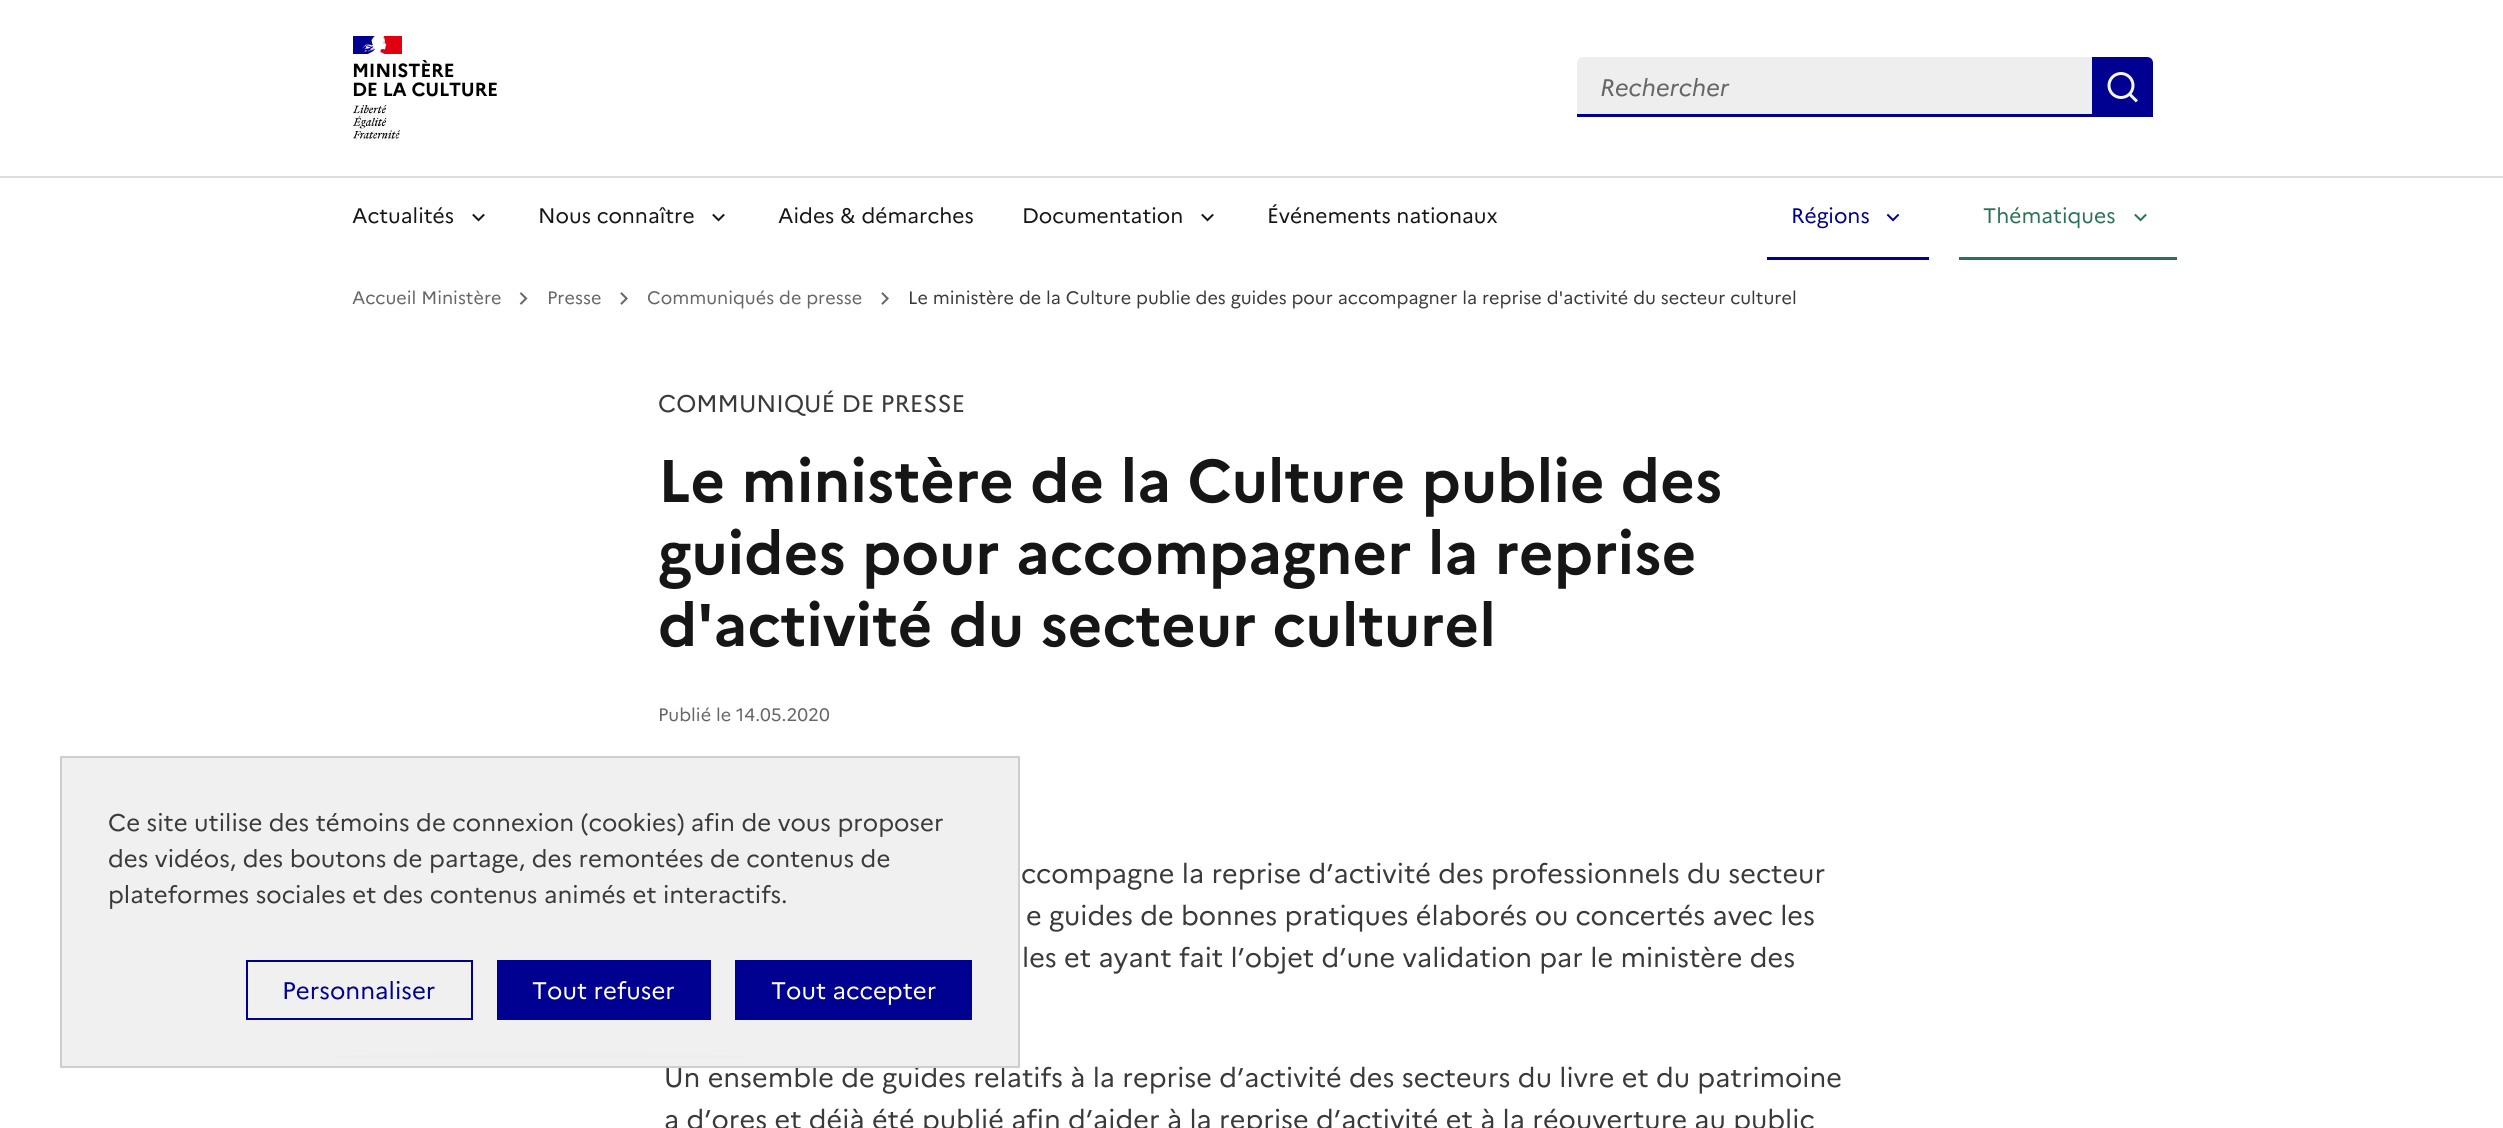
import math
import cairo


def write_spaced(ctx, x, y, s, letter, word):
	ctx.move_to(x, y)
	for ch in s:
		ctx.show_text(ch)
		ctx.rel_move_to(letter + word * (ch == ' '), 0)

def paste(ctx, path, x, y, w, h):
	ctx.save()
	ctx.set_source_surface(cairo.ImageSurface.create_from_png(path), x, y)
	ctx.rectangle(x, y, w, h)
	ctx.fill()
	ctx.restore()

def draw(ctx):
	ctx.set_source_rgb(1, 1, 1)
	ctx.paint()
	ctx.set_source_rgb(0, 0, 0.569)
	ctx.rectangle(353, 36, 23, 18)
	ctx.fill()
	ctx.set_source_rgb(0.882, 0, 0.059)
	ctx.rectangle(380, 36, 22, 18)
	ctx.fill()
	paste(ctx, 'media/1.png', 362, 36, 25, 18)
	ctx.select_font_face('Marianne', cairo.FONT_SLANT_NORMAL, cairo.FONT_WEIGHT_BOLD)
	ctx.set_font_size(19)
	ctx.set_source_rgb(0, 0, 0)
	write_spaced(ctx, 352, 77, 'MINISTÈRE', -0.25, 0)
	write_spaced(ctx, 352, 96, 'DE LA CULTURE', -0.25, 0)
	paste(ctx, 'media/2.png', 353, 105, 47, 36)
	ctx.set_source_rgb(0.933, 0.933, 0.933)
	ctx.new_path()
	ctx.move_to(1583, 57)
	ctx.line_to(2093, 57)
	ctx.line_to(2093, 117)
	ctx.line_to(1577, 117)
	ctx.line_to(1577, 63)
	ctx.curve_to(1577, 59.5, 1579.5, 57, 1583, 57)
	ctx.close_path()
	ctx.fill()
	ctx.set_source_rgb(0, 0, 0.569)
	ctx.new_path()
	ctx.move_to(1577, 114)
	ctx.line_to(1577, 117)
	ctx.line_to(2093, 117)
	ctx.line_to(2093, 57)
	ctx.line_to(2092, 57)
	ctx.line_to(2092, 114)
	ctx.close_path()
	ctx.fill()
	ctx.select_font_face('Marianne', cairo.FONT_SLANT_ITALIC)
	ctx.set_font_size(24)
	ctx.set_source_rgb(0.4, 0.4, 0.4)
	ctx.move_to(1600, 96)
	ctx.show_text('Rechercher')
	ctx.set_source_rgb(0, 0, 0.569)
	ctx.new_path()
	ctx.move_to(2093, 57)
	ctx.line_to(2147, 57)
	ctx.curve_to(2150.5, 57, 2153, 59.5, 2153, 63)
	ctx.line_to(2153, 117)
	ctx.line_to(2093, 117)
	ctx.close_path()
	ctx.fill()
	paste(ctx, 'media/3.png', 2107, 72, 31, 31)
	ctx.set_source_rgb(0.867, 0.867, 0.867)
	ctx.rectangle(0, 176, 2503, 2)
	ctx.fill()
	ctx.select_font_face('Marianne')
	ctx.set_font_size(21)
	ctx.set_source_rgb(0.086, 0.086, 0.086)
	ctx.move_to(352, 223)
	ctx.show_text('Actualités')
	paste(ctx, 'media/4.png', 472, 213, 13, 9)
	ctx.move_to(538, 223)
	ctx.show_text('Nous connaître')
	paste(ctx, 'media/4.png', 712, 213, 13, 9)
	ctx.move_to(778, 223)
	ctx.show_text('Aides & démarches')
	ctx.move_to(1022, 223)
	ctx.show_text('Documentation')
	paste(ctx, 'media/4.png', 1201, 213, 13, 9)
	ctx.move_to(1267, 223)
	ctx.show_text('Événements nationaux')
	ctx.set_source_rgb(0, 0, 0.569)
	ctx.move_to(1791, 223)
	ctx.show_text('Régions')
	paste(ctx, 'media/5.png', 1886, 213, 14, 9)
	ctx.rectangle(1767, 257, 162, 3)
	ctx.fill()
	ctx.set_source_rgb(0.161, 0.447, 0.329)
	ctx.move_to(1983, 223)
	ctx.show_text('Thématiques')
	paste(ctx, 'media/6.png', 2134, 213, 13, 9)
	ctx.rectangle(1959, 257, 218, 3)
	ctx.fill()
	ctx.set_font_size(18)
	ctx.set_source_rgb(0.4, 0.4, 0.4)
	ctx.move_to(352, 304)
	ctx.show_text('Accueil Ministère')
	paste(ctx, 'media/7.png', 519, 292, 9, 13)
	ctx.move_to(547, 304)
	ctx.show_text('Presse')
	paste(ctx, 'media/8.png', 620, 292, 8, 13)
	ctx.move_to(647, 304)
	ctx.show_text('Communiqués de presse')
	paste(ctx, 'media/8.png', 881, 292, 8, 13)
	ctx.set_source_rgb(0.227, 0.227, 0.227)
	ctx.move_to(908, 304)
	ctx.show_text('Le ministère de la Culture publie des guides pour accompagner la reprise d\'activité du secteur culturel')
	ctx.set_font_size(24)
	ctx.move_to(658, 412)
	ctx.show_text('COMMUNIQUÉ DE PRESSE')
	ctx.select_font_face('Marianne', cairo.FONT_SLANT_NORMAL, cairo.FONT_WEIGHT_BOLD)
	ctx.set_font_size(60)
	ctx.set_source_rgb(0.086, 0.086, 0.086)
	for x, y, s in [
		(658, 502, 'Le ministère de la Culture publie des'),
		(658, 574, 'guides pour accompagner la reprise'),
		(658, 646, 'd\'activité du secteur culturel'),
	]:
		ctx.move_to(x, y)
		ctx.show_text(s)
	ctx.select_font_face('Marianne')
	ctx.set_font_size(18)
	ctx.set_source_rgb(0.4, 0.4, 0.4)
	ctx.move_to(658, 721)
	ctx.show_text('Publié le 14.05.2020')
	ctx.set_font_size(27)
	ctx.set_source_rgb(0.227, 0.227, 0.227)
	for x, y, s in [
		(1021, 883, 'ccompagne la reprise d’activité des professionnels du secteur'),
		(1026, 925, 'e guides de bonnes pratiques élaborés ou concertés avec les'),
		(1022, 967, 'les et ayant fait l’objet d’une validation par le ministère des'),
		(664, 1087, 'Un ensemble de guides relatifs à la reprise d’activité des secteurs du livre et du patrimoine'),
		(664, 1129, 'a d’ores et déjà été publié afin d’aider à la reprise d’activité et à la réouverture au public'),
	]:
		ctx.move_to(x, y)
		ctx.show_text(s)
	ctx.set_source_rgb(0.941, 0.941, 0.941)
	ctx.rectangle(62, 765, 956, 288)
	ctx.fill()
	gradient = cairo.RadialGradient(0, 0, 0, 0, 0, 1)
	gradient.set_matrix(cairo.Matrix(1 / 480, 0, 0, 1 / 15, -1 * 540 / 480, -1 * 1068 / 15))
	gradient.add_color_stop_rgba(0, 0.537, 0.537, 0.537, 1)
	gradient.add_color_stop_rgba(1, 0.941, 0.941, 0.941, 1)
	ctx.set_source(gradient)
	ctx.rectangle(62, 1053, 956, 6)
	ctx.fill()
	gradient = cairo.LinearGradient(540, 1041, 540, 1068)
	gradient.add_color_stop_rgba(0, 0.941, 0.941, 0.941, 0)
	gradient.add_color_stop_rgba(0.66, 0.941, 0.941, 0.941, 1)
	ctx.set_source(gradient)
	ctx.rectangle(62, 1054, 956, 12)
	ctx.fill()
	gradient = cairo.LinearGradient(540, 756, 540, 783)
	gradient.add_color_stop_rgba(0.33, 0.941, 0.941, 0.941, 1)
	gradient.add_color_stop_rgba(1, 0.941, 0.941, 0.941, 0)
	ctx.set_source(gradient)
	ctx.rectangle(62, 758, 956, 7)
	ctx.fill()
	ctx.rectangle(61, 757, 958, 310)
	ctx.set_source_rgb(0.808, 0.808, 0.808)
	ctx.stroke()
	ctx.set_font_size(24)
	ctx.set_source_rgb(0.227, 0.227, 0.227)
	for x, y, s in [
		(108, 831, 'Ce site utilise des témoins de connexion (cookies) afin de vous proposer'),
		(108, 867, 'des vidéos, des boutons de partage, des remontées de contenus de'),
		(108, 903, 'plateformes sociales et des contenus animés et interactifs.'),
	]:
		ctx.move_to(x, y)
		ctx.show_text(s)
	ctx.rectangle(247, 961, 225, 58)
	ctx.set_source_rgb(0, 0, 0.569)
	ctx.stroke()
	ctx.move_to(282, 999)
	ctx.show_text('Personnaliser')
	ctx.rectangle(497, 960, 214, 60)
	ctx.fill()
	ctx.set_source_rgb(1, 1, 1)
	ctx.move_to(532, 999)
	ctx.show_text('Tout refuser')
	ctx.set_source_rgb(0, 0, 0.569)
	ctx.rectangle(735, 960, 237, 60)
	ctx.fill()
	ctx.set_source_rgb(1, 1, 1)
	ctx.move_to(771, 999)
	ctx.show_text('Tout accepter')


surface = cairo.ImageSurface(cairo.FORMAT_RGB24, 2503, 1128)
ctx = cairo.Context(surface)
options = cairo.FontOptions()
options.set_hint_metrics(cairo.HINT_METRICS_OFF)
options.set_hint_style(cairo.HINT_STYLE_NONE)
ctx.set_font_options(options)
ctx.set_miter_limit(4)
draw(ctx)
surface.write_to_png('image.png')
